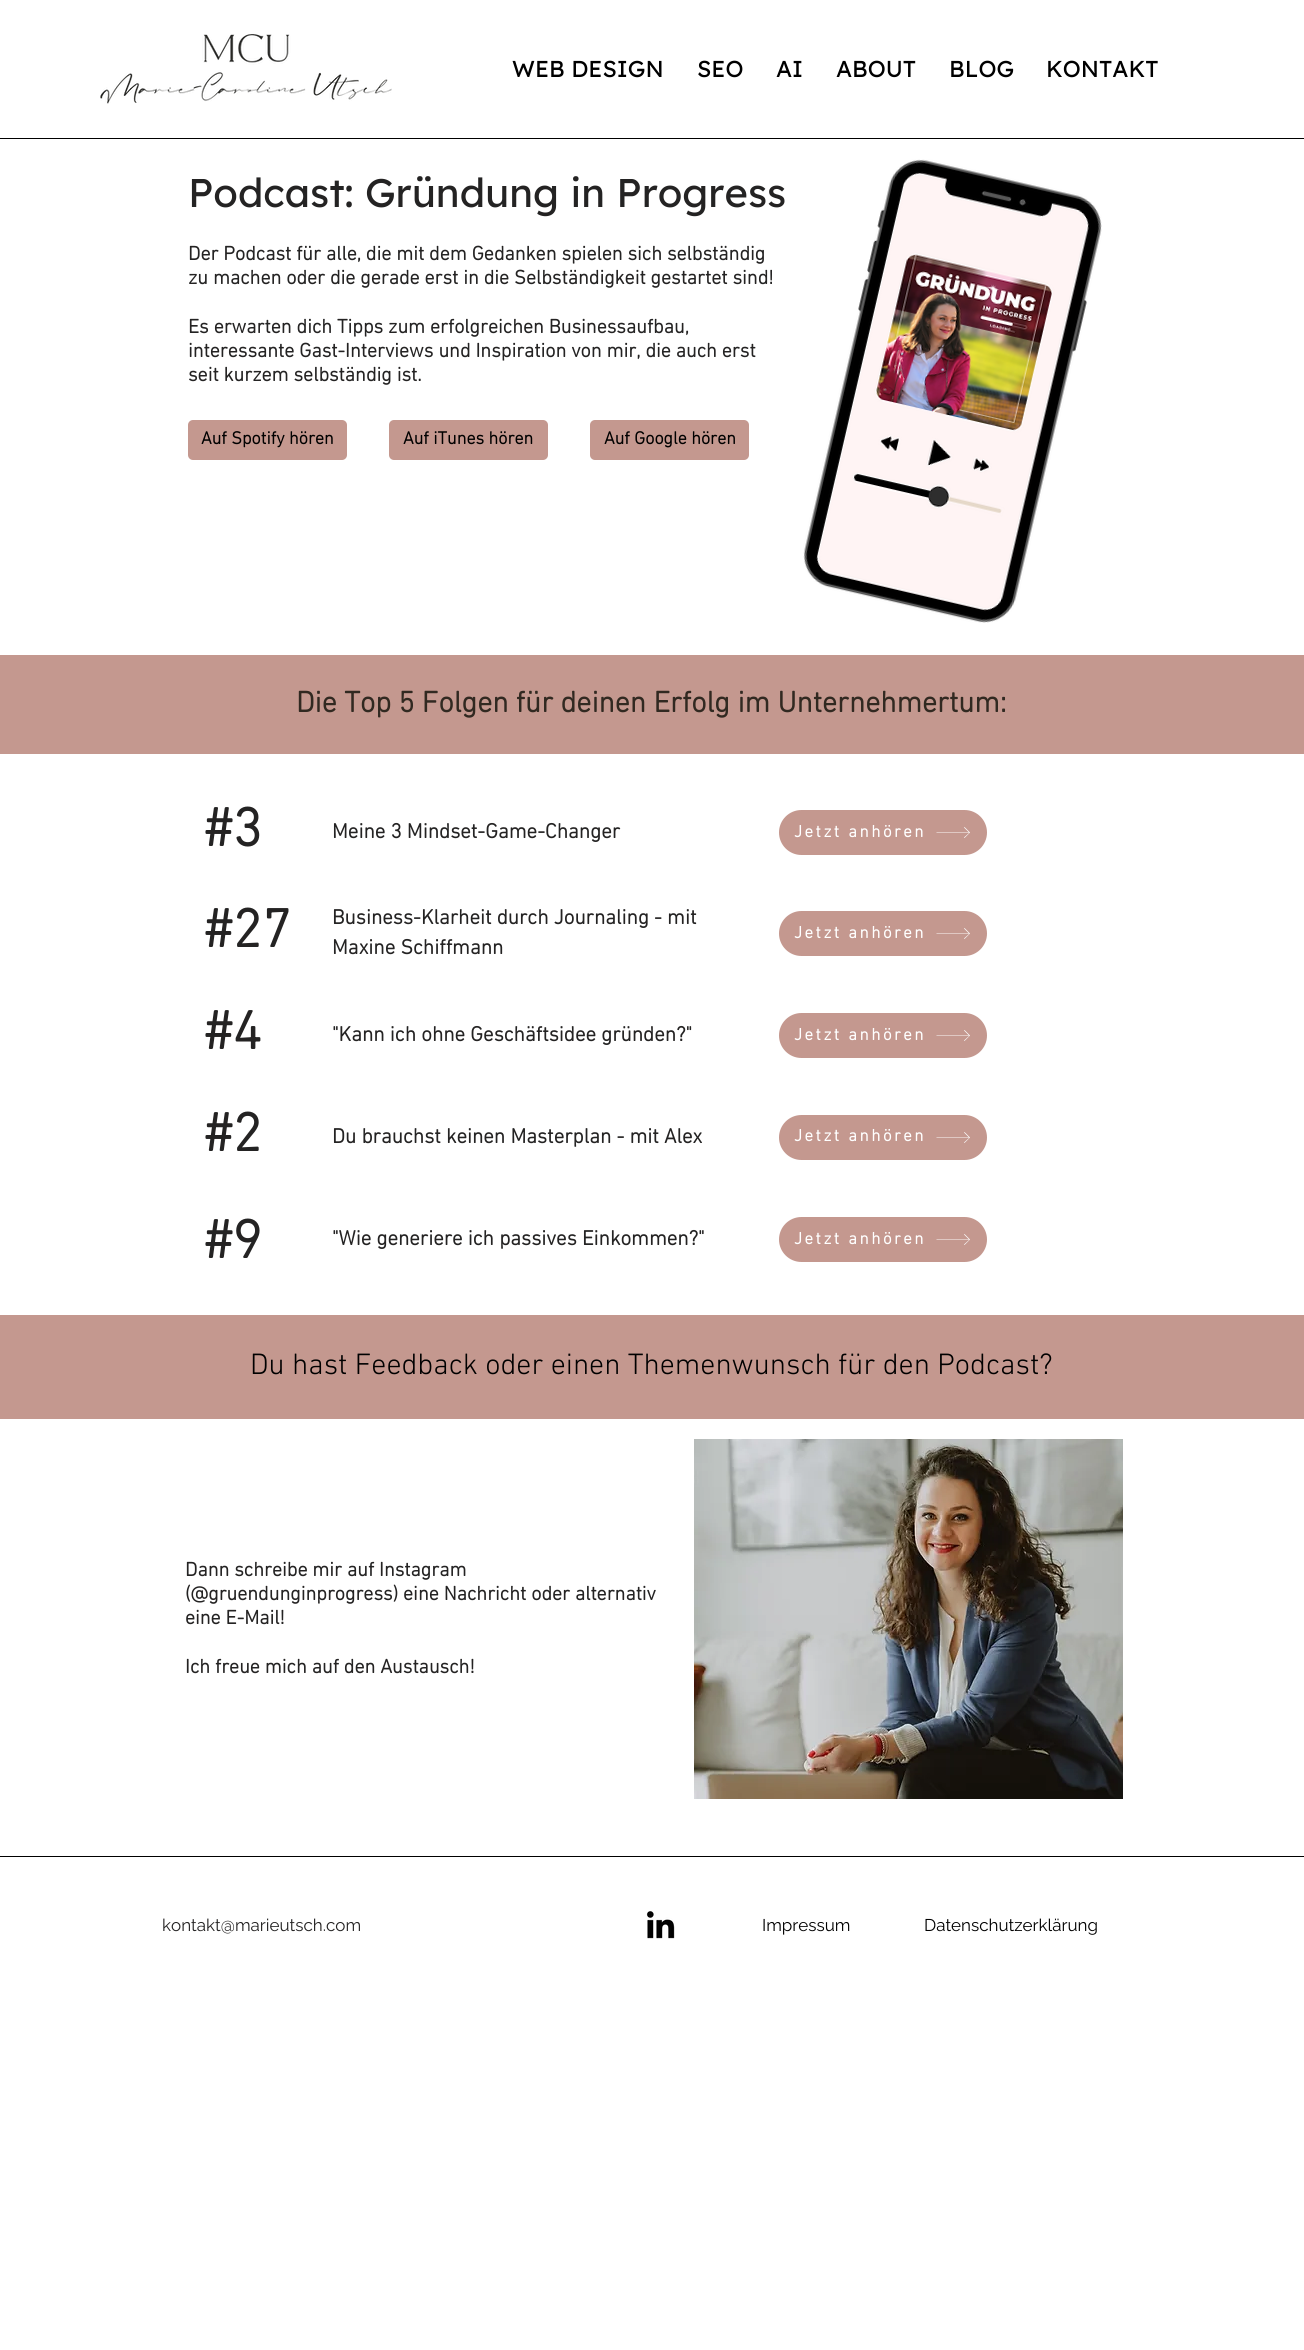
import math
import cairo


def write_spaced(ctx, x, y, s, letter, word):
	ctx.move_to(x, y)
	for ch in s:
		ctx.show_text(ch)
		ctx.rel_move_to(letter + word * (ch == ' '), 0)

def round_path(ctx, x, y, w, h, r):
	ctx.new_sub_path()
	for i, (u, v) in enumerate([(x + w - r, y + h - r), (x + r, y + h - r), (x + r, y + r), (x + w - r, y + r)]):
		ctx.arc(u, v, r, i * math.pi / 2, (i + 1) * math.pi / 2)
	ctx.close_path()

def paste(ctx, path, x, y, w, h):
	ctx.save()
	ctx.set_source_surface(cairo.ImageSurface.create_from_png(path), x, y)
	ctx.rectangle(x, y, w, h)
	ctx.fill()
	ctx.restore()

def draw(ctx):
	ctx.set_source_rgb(1, 1, 1)
	ctx.paint()
	paste(ctx, 'media/1.png', 100, 34, 292, 70)
	ctx.select_font_face('Lexend Deca')
	ctx.set_font_size(23)
	ctx.set_source_rgb(0, 0, 0)
	for x, y, s in [
		(512, 77, 'WEB DESIGN'),
		(697, 77, 'SEO'),
		(776, 77, 'AI'),
		(836, 77, 'ABOUT'),
		(949, 77, 'BLOG'),
		(1046, 77, 'KONTAKT'),
	]:
		ctx.move_to(x, y)
		ctx.show_text(s)
	ctx.rectangle(0, 138, 1304, 1)
	ctx.fill()
	ctx.set_font_size(40)
	ctx.set_source_rgb(0.141, 0.137, 0.137)
	ctx.move_to(188, 207)
	ctx.show_text('Podcast: Gründung in Progress')
	paste(ctx, 'media/2.png', 803, 159, 299, 464)
	ctx.select_font_face('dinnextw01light', cairo.FONT_SLANT_NORMAL, cairo.FONT_WEIGHT_BOLD)
	ctx.set_font_size(20)
	for x, y, s in [
		(188, 260, 'Der Podcast für alle, die mit dem Gedanken spielen sich selbständig'),
		(188, 284, 'zu machen oder die gerade erst in die Selbständigkeit gestartet sind!'),
		(188, 333, 'Es erwarten dich Tipps zum erfolgreichen Businessaufbau,'),
		(188, 357, 'interessante Gast-Interviews und Inspiration von mir, die auch erst'),
		(188, 381, 'seit kurzem selbständig ist.'),
	]:
		ctx.move_to(x, y)
		ctx.show_text(s)
	ctx.set_source_rgb(0.769, 0.596, 0.561)
	round_path(ctx, 188, 420, 159, 40, 5)
	ctx.fill()
	ctx.set_font_size(18)
	ctx.set_source_rgb(0, 0, 0)
	ctx.move_to(201, 444)
	ctx.show_text('Auf Spotify hören')
	ctx.set_source_rgb(0.769, 0.596, 0.561)
	round_path(ctx, 389, 420, 159, 40, 5)
	ctx.fill()
	ctx.set_source_rgb(0, 0, 0)
	ctx.move_to(403, 444)
	ctx.show_text('Auf iTunes hören')
	ctx.set_source_rgb(0.769, 0.596, 0.561)
	round_path(ctx, 590, 420, 159, 40, 5)
	ctx.fill()
	ctx.set_source_rgb(0, 0, 0)
	ctx.move_to(604, 444)
	ctx.show_text('Auf Google hören')
	ctx.set_source_rgb(0.769, 0.596, 0.561)
	ctx.rectangle(0, 655, 1304, 99)
	ctx.fill()
	ctx.set_font_size(30)
	ctx.set_source_rgb(0.192, 0.161, 0.129)
	ctx.move_to(296, 712)
	ctx.show_text('Die Top 5 Folgen für deinen Erfolg im Unternehmertum:')
	ctx.set_font_size(55)
	ctx.set_source_rgb(0.141, 0.137, 0.137)
	ctx.move_to(204, 846)
	ctx.show_text('#3')
	ctx.set_font_size(21)
	ctx.move_to(332, 838)
	ctx.show_text('Meine 3 Mindset-Game-Changer')
	ctx.set_source_rgb(0.769, 0.596, 0.561)
	round_path(ctx, 779, 810, 208, 45, 22.5)
	ctx.fill()
	ctx.set_font_size(17)
	ctx.set_source_rgb(1, 1, 1)
	write_spaced(ctx, 794, 837, 'Jetzt anhören', 2.5, 0)
	ctx.new_path()
	ctx.move_to(964.5, 827)
	ctx.line_to(964, 827.5)
	ctx.line_to(969, 832.5)
	ctx.line_to(936.5, 832.5)
	ctx.line_to(936.5, 833)
	ctx.line_to(969, 833)
	ctx.line_to(964, 837.5)
	ctx.line_to(964.5, 838)
	ctx.line_to(970, 832.5)
	ctx.close_path()
	ctx.fill()
	ctx.set_font_size(55)
	ctx.set_source_rgb(0.141, 0.137, 0.137)
	ctx.move_to(204, 947)
	ctx.show_text('#27')
	ctx.set_font_size(21)
	ctx.move_to(332, 924)
	ctx.show_text('Business-Klarheit durch Journaling - mit')
	ctx.move_to(332, 954)
	ctx.show_text('Maxine Schiffmann')
	ctx.set_source_rgb(0.769, 0.596, 0.561)
	round_path(ctx, 779, 911, 208, 45, 22.5)
	ctx.fill()
	ctx.set_font_size(17)
	ctx.set_source_rgb(1, 1, 1)
	write_spaced(ctx, 794, 938, 'Jetzt anhören', 2.5, 0)
	ctx.new_path()
	ctx.move_to(964.5, 928)
	ctx.line_to(964, 928.5)
	ctx.line_to(969, 933.5)
	ctx.line_to(936.5, 933.5)
	ctx.line_to(936.5, 934)
	ctx.line_to(969, 934)
	ctx.line_to(964, 938.5)
	ctx.line_to(964.5, 939)
	ctx.line_to(970, 933.5)
	ctx.close_path()
	ctx.fill()
	ctx.set_font_size(55)
	ctx.set_source_rgb(0.141, 0.137, 0.137)
	ctx.move_to(204, 1049)
	ctx.show_text('#4')
	ctx.set_font_size(21)
	ctx.move_to(332, 1041)
	ctx.show_text('"Kann ich ohne Geschäftsidee gründen?"')
	ctx.set_source_rgb(0.769, 0.596, 0.561)
	round_path(ctx, 779, 1013, 208, 45, 22.5)
	ctx.fill()
	ctx.set_font_size(17)
	ctx.set_source_rgb(1, 1, 1)
	write_spaced(ctx, 794, 1040, 'Jetzt anhören', 2.5, 0)
	ctx.new_path()
	ctx.move_to(964.5, 1030)
	ctx.line_to(964, 1030.5)
	ctx.line_to(969, 1035.5)
	ctx.line_to(936.5, 1035.5)
	ctx.line_to(936.5, 1036)
	ctx.line_to(969, 1036)
	ctx.line_to(964, 1040.5)
	ctx.line_to(964.5, 1041)
	ctx.line_to(970, 1035.5)
	ctx.close_path()
	ctx.fill()
	ctx.set_font_size(55)
	ctx.set_source_rgb(0.141, 0.137, 0.137)
	ctx.move_to(204, 1151)
	ctx.show_text('#2')
	ctx.set_font_size(21)
	ctx.move_to(332, 1143)
	ctx.show_text('Du brauchst keinen Masterplan - mit Alex')
	ctx.set_source_rgb(0.769, 0.596, 0.561)
	round_path(ctx, 779, 1115, 208, 45, 22.5)
	ctx.fill()
	ctx.set_font_size(17)
	ctx.set_source_rgb(1, 1, 1)
	write_spaced(ctx, 794, 1141, 'Jetzt anhören', 2.5, 0)
	ctx.new_path()
	ctx.move_to(964.5, 1132)
	ctx.line_to(964, 1132.5)
	ctx.line_to(969, 1137.5)
	ctx.line_to(936.5, 1137.5)
	ctx.line_to(936.5, 1138)
	ctx.line_to(969, 1138)
	ctx.line_to(964, 1142.5)
	ctx.line_to(964.5, 1143)
	ctx.line_to(970, 1137.5)
	ctx.close_path()
	ctx.fill()
	ctx.set_font_size(55)
	ctx.set_source_rgb(0.141, 0.137, 0.137)
	ctx.move_to(204, 1258)
	ctx.show_text('#9')
	ctx.set_font_size(21)
	ctx.move_to(332, 1245)
	ctx.show_text('"Wie generiere ich passives Einkommen?"')
	ctx.set_source_rgb(0.769, 0.596, 0.561)
	round_path(ctx, 779, 1217, 208, 45, 22.5)
	ctx.fill()
	ctx.set_font_size(17)
	ctx.set_source_rgb(1, 1, 1)
	write_spaced(ctx, 794, 1244, 'Jetzt anhören', 2.5, 0)
	ctx.new_path()
	ctx.move_to(964.5, 1234)
	ctx.line_to(964, 1234.5)
	ctx.line_to(969, 1239.5)
	ctx.line_to(936.5, 1239.5)
	ctx.line_to(936.5, 1240)
	ctx.line_to(969, 1240)
	ctx.line_to(964, 1244.5)
	ctx.line_to(964.5, 1245)
	ctx.line_to(970, 1239.5)
	ctx.close_path()
	ctx.fill()
	ctx.set_source_rgb(0.769, 0.596, 0.561)
	ctx.rectangle(0, 1315, 1304, 104)
	ctx.fill()
	ctx.select_font_face('dinnextw01light Light')
	ctx.set_font_size(30)
	ctx.set_source_rgb(0, 0, 0)
	ctx.move_to(250, 1374)
	ctx.show_text('Du hast Feedback oder einen Themenwunsch für den Podcast?')
	ctx.select_font_face('dinnextw01light', cairo.FONT_SLANT_NORMAL, cairo.FONT_WEIGHT_BOLD)
	ctx.set_font_size(20)
	ctx.set_source_rgb(0.141, 0.137, 0.137)
	for x, y, s in [
		(185, 1576, 'Dann schreibe mir auf Instagram'),
		(185, 1600, '(@gruendunginprogress) eine Nachricht oder alternativ'),
		(185, 1624, 'eine E-Mail!'),
		(185, 1673, 'Ich freue mich auf den Austausch!'),
	]:
		ctx.move_to(x, y)
		ctx.show_text(s)
	paste(ctx, 'media/3.png', 694, 1439, 429, 360)
	ctx.set_source_rgb(0, 0, 0)
	ctx.rectangle(0, 1856, 1304, 1)
	ctx.fill()
	ctx.select_font_face('Raleway')
	ctx.set_font_size(17)
	ctx.set_source_rgb(0.141, 0.137, 0.137)
	ctx.move_to(162, 1931)
	ctx.show_text('kontakt@marieutsch.com')
	paste(ctx, 'media/4.png', 646, 1911, 29, 28)
	ctx.set_source_rgb(0, 0, 0)
	ctx.move_to(762, 1931)
	ctx.show_text('Impressum')
	ctx.move_to(924, 1931)
	ctx.show_text('Datenschutzerklärung')


surface = cairo.ImageSurface(cairo.FORMAT_RGB24, 1304, 2350)
ctx = cairo.Context(surface)
options = cairo.FontOptions()
options.set_hint_metrics(cairo.HINT_METRICS_OFF)
options.set_hint_style(cairo.HINT_STYLE_NONE)
ctx.set_font_options(options)
ctx.set_miter_limit(4)
draw(ctx)
surface.write_to_png('image.png')
